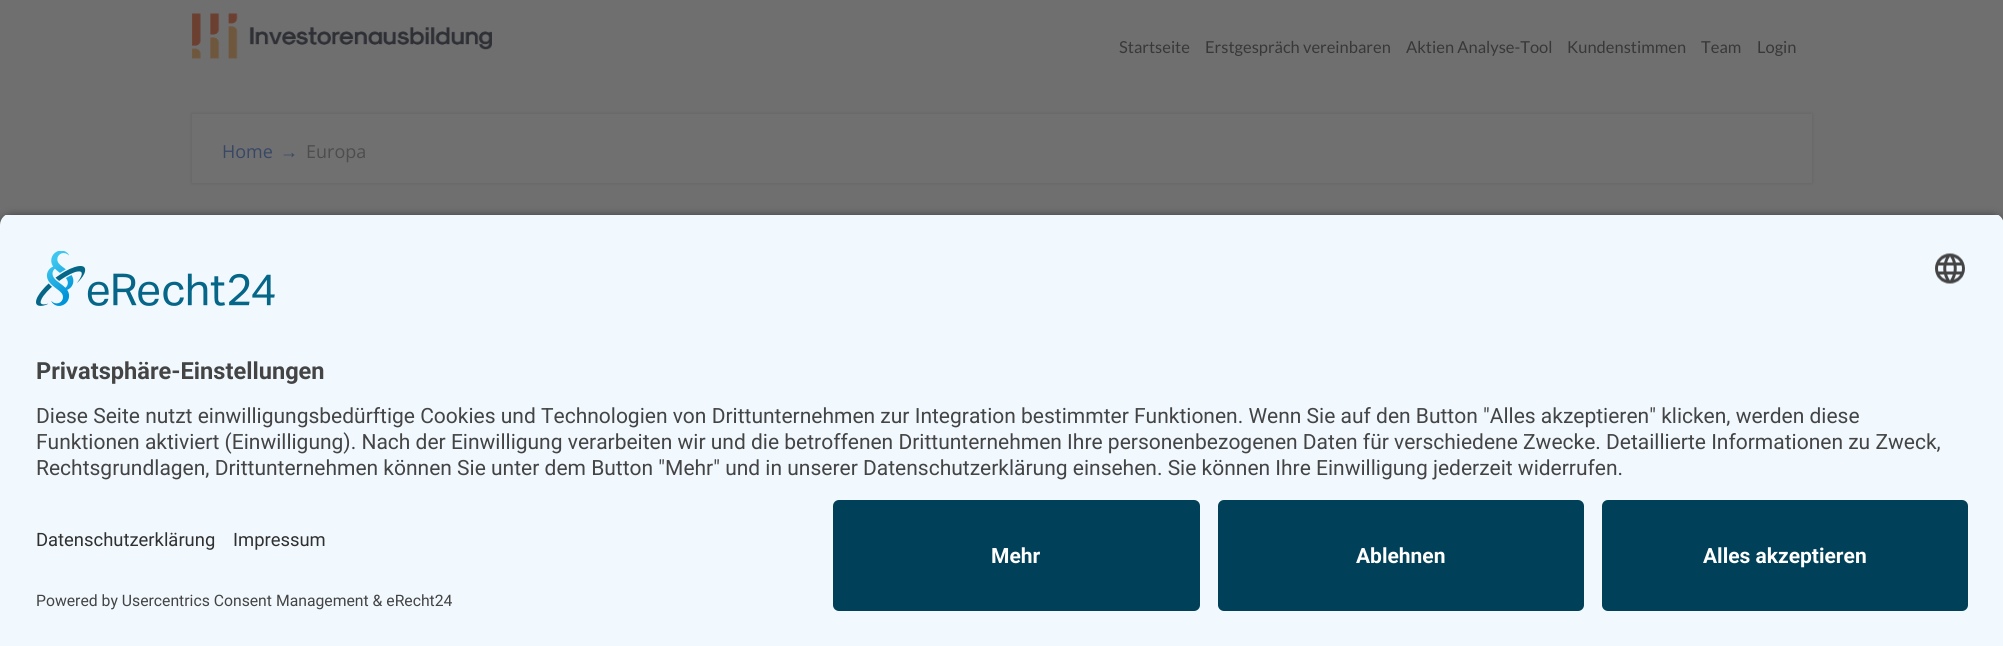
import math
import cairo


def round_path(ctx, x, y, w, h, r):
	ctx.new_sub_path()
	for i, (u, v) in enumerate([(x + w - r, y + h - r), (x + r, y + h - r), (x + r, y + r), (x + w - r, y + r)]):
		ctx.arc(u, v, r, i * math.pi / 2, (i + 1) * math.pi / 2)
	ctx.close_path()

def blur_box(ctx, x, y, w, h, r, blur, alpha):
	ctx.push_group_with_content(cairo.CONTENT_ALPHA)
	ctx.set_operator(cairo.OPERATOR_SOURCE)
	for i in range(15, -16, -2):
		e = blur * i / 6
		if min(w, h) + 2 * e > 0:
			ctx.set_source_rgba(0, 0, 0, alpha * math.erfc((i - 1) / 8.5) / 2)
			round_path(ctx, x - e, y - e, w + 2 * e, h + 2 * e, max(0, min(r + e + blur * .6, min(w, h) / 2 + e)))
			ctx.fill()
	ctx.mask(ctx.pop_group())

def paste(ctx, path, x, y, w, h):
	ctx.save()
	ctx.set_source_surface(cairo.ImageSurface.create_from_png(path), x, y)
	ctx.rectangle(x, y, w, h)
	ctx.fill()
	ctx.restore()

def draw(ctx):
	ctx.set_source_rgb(0.435, 0.435, 0.435)
	ctx.paint()
	paste(ctx, 'media/1.png', 192, 13, 300, 46)
	ctx.select_font_face('Lato')
	ctx.set_font_size(16.5)
	ctx.set_source_rgb(0.22, 0.22, 0.22)
	for x, y, s in [
		(1119, 53, 'Startseite'),
		(1205, 53, 'Erstgespräch vereinbaren'),
		(1406, 53, 'Aktien Analyse-Tool'),
		(1567, 53, 'Kundenstimmen'),
		(1701, 53, 'Team'),
		(1757, 53, 'Login'),
	]:
		ctx.move_to(x, y)
		ctx.show_text(s)
	ctx.set_source_rgb(0.141, 0.141, 0.141)
	blur_box(ctx, 192, 114, 1620, 69, 0, 2, 0.16)
	ctx.set_source_rgb(0.439, 0.439, 0.439)
	ctx.rectangle(192, 114, 1620, 69)
	ctx.fill()
	ctx.select_font_face('Open Sans')
	ctx.set_font_size(18)
	ctx.set_source_rgb(0.216, 0.278, 0.4)
	ctx.move_to(222, 158)
	ctx.show_text('Home')
	ctx.select_font_face('Liberation Sans')
	ctx.move_to(280, 158)
	ctx.show_text('→')
	ctx.select_font_face('Open Sans')
	ctx.set_source_rgb(0.306, 0.302, 0.302)
	ctx.move_to(306, 158)
	ctx.show_text('Europa')
	ctx.set_source_rgb(0, 0, 0)
	blur_box(ctx, 0, 218, 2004, 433, 12, 5, 0.8)
	ctx.save()
	ctx.new_path()
	ctx.move_to(12, 213)
	ctx.line_to(1992, 213)
	ctx.curve_to(1998.5, 213, 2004, 218.5, 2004, 225)
	ctx.line_to(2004, 488)
	ctx.line_to(0, 488)
	ctx.line_to(0, 225)
	ctx.curve_to(0, 218.5, 5.5, 213, 12, 213)
	ctx.close_path()
	ctx.clip()
	ctx.set_source_rgb(0.945, 0.973, 1)
	ctx.rectangle(0, 215, 2003, 273)
	ctx.fill()
	ctx.restore()
	paste(ctx, 'media/2.png', 36, 251, 239, 55)
	paste(ctx, 'media/3.png', 1935, 253, 30, 31)
	ctx.select_font_face('Roboto', cairo.FONT_SLANT_NORMAL, cairo.FONT_WEIGHT_BOLD)
	ctx.set_font_size(23.6)
	ctx.set_source_rgb(0.267, 0.267, 0.267)
	ctx.move_to(36, 379)
	ctx.show_text('Privatsphäre-Einstellungen')
	ctx.select_font_face('Roboto')
	ctx.set_font_size(21)
	for x, y, s in [
		(36, 423, 'Diese Seite nutzt einwilligungsbedürftige Cookies und Technologien von Drittunternehmen zur Integration bestimmter Funktionen. Wenn Sie auf den Button "Alles akzeptieren" klicken, werden diese'),
		(36, 449, 'Funktionen aktiviert (Einwilligung). Nach der Einwilligung verarbeiten wir und die betroffenen Drittunternehmen Ihre personenbezogenen Daten für verschiedene Zwecke. Detaillierte Informationen zu Zweck,'),
		(36, 475, 'Rechtsgrundlagen, Drittunternehmen können Sie unter dem Button "Mehr" und in unserer Datenschutzerklärung einsehen. Sie können Ihre Einwilligung jederzeit widerrufen.'),
	]:
		ctx.move_to(x, y)
		ctx.show_text(s)
	ctx.set_source_rgb(0.945, 0.973, 1)
	ctx.rectangle(0, 488, 2003, 158)
	ctx.fill()
	ctx.set_font_size(18.4)
	ctx.set_source_rgb(0.188, 0.188, 0.188)
	ctx.move_to(36, 546)
	ctx.show_text('Datenschutzerklärung')
	ctx.move_to(233, 546)
	ctx.show_text('Impressum')
	ctx.set_font_size(15.75)
	ctx.set_source_rgb(0.267, 0.267, 0.267)
	ctx.move_to(36, 606)
	ctx.show_text('Powered by Usercentrics Consent Management & eRecht24')
	ctx.set_source_rgb(0, 0.251, 0.349)
	round_path(ctx, 833, 500, 367, 111, 6)
	ctx.fill()
	ctx.select_font_face('Roboto', cairo.FONT_SLANT_NORMAL, cairo.FONT_WEIGHT_BOLD)
	ctx.set_font_size(21)
	ctx.set_source_rgb(1, 1, 1)
	ctx.move_to(991, 563)
	ctx.show_text('Mehr')
	ctx.set_source_rgb(0, 0.251, 0.349)
	round_path(ctx, 1218, 500, 366, 111, 6)
	ctx.fill()
	ctx.set_source_rgb(1, 1, 1)
	ctx.move_to(1356, 563)
	ctx.show_text('Ablehnen')
	ctx.set_source_rgb(0, 0.251, 0.349)
	round_path(ctx, 1602, 500, 366, 111, 6)
	ctx.fill()
	ctx.set_source_rgb(1, 1, 1)
	ctx.move_to(1703, 563)
	ctx.show_text('Alles akzeptieren')


surface = cairo.ImageSurface(cairo.FORMAT_RGB24, 2003, 646)
ctx = cairo.Context(surface)
options = cairo.FontOptions()
options.set_hint_metrics(cairo.HINT_METRICS_OFF)
options.set_hint_style(cairo.HINT_STYLE_NONE)
ctx.set_font_options(options)
ctx.set_miter_limit(4)
draw(ctx)
surface.write_to_png('image.png')
